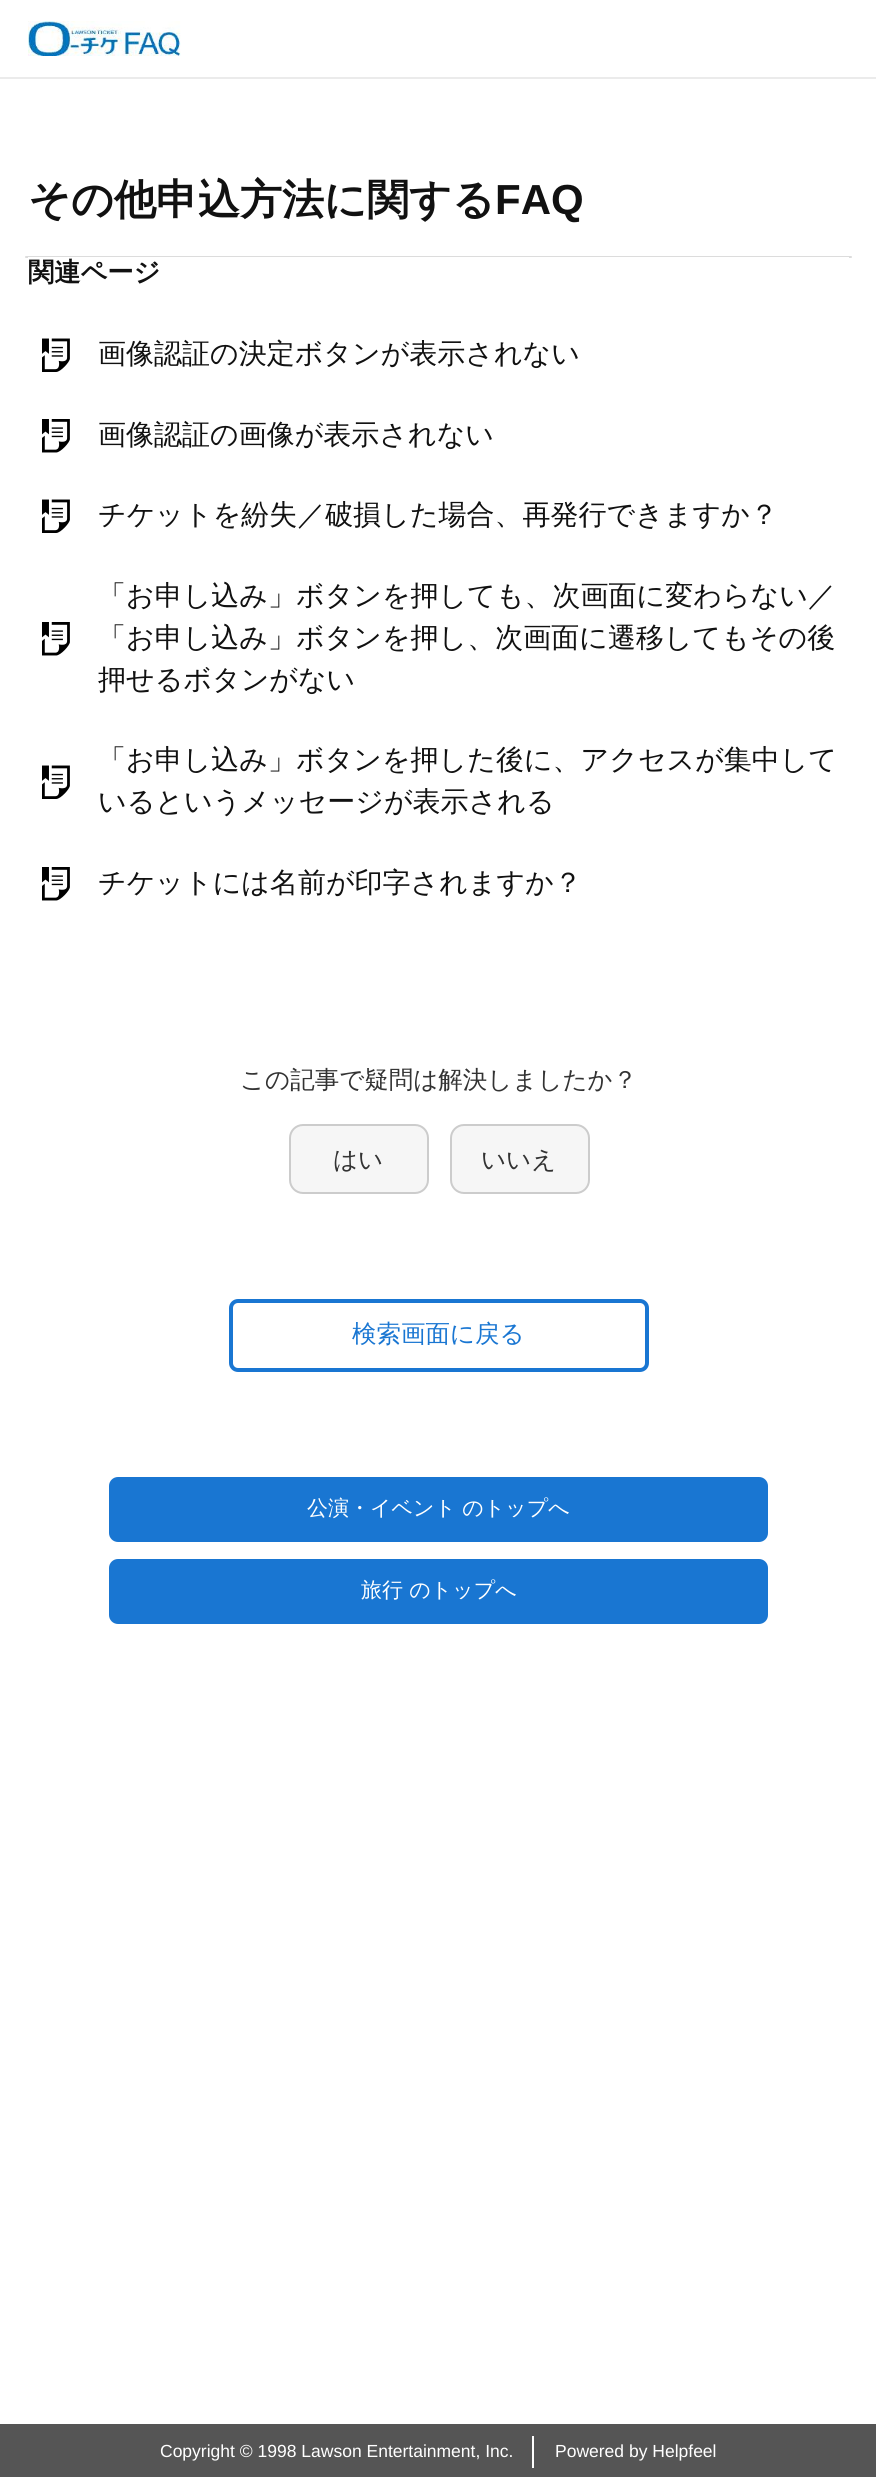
import math
import cairo


def round_path(ctx, x, y, w, h, r):
	ctx.new_sub_path()
	for i, (u, v) in enumerate([(x + w - r, y + h - r), (x + r, y + h - r), (x + r, y + r), (x + w - r, y + r)]):
		ctx.arc(u, v, r, i * math.pi / 2, (i + 1) * math.pi / 2)
	ctx.close_path()

def paste(ctx, path, x, y, w, h):
	ctx.save()
	ctx.set_source_surface(cairo.ImageSurface.create_from_png(path), x, y)
	ctx.rectangle(x, y, w, h)
	ctx.fill()
	ctx.restore()

def draw(ctx):
	ctx.set_source_rgb(1, 1, 1)
	ctx.paint()
	ctx.set_source_rgb(0.918, 0.918, 0.918)
	ctx.rectangle(0, 77, 876, 2)
	ctx.fill()
	paste(ctx, 'media/1.png', 28, 21, 153, 35)
	ctx.select_font_face('WenQuanYi Zen Hei', cairo.FONT_SLANT_NORMAL, cairo.FONT_WEIGHT_BOLD)
	ctx.set_font_size(42)
	ctx.set_source_rgb(0.067, 0.067, 0.067)
	ctx.move_to(28, 214)
	ctx.show_text('その他申込方法に関する')
	ctx.select_font_face('Liberation Sans', cairo.FONT_SLANT_NORMAL, cairo.FONT_WEIGHT_BOLD)
	ctx.move_to(495, 214)
	ctx.show_text('FAQ')
	ctx.set_source_rgb(0.863, 0.863, 0.863)
	round_path(ctx, 25, 256, 827, 2, 1)
	ctx.fill()
	ctx.set_source_rgb(1, 1, 1)
	ctx.new_path()
	ctx.move_to(28, 257)
	ctx.line_to(849, 257)
	ctx.line_to(849, 936)
	ctx.curve_to(849, 943.5, 842.5, 950, 835, 950)
	ctx.line_to(42, 950)
	ctx.curve_to(34.5, 950, 28, 943.5, 28, 936)
	ctx.close_path()
	ctx.fill()
	ctx.select_font_face('WenQuanYi Zen Hei', cairo.FONT_SLANT_NORMAL, cairo.FONT_WEIGHT_BOLD)
	ctx.set_font_size(26.25)
	ctx.set_source_rgb(0.067, 0.067, 0.067)
	ctx.move_to(28, 281)
	ctx.show_text('関連ページ')
	paste(ctx, 'media/2.png', 42, 338, 28, 34)
	ctx.select_font_face('WenQuanYi Zen Hei Medium')
	ctx.set_font_size(28)
	ctx.move_to(98, 363)
	ctx.show_text('画像認証の決定ボタンが表示されない')
	paste(ctx, 'media/3.png', 42, 419, 28, 34)
	ctx.move_to(98, 444)
	ctx.show_text('画像認証の画像が表示されない')
	paste(ctx, 'media/2.png', 42, 499, 28, 34)
	ctx.move_to(98, 524)
	ctx.show_text('チケットを紛失／破損した場合、再発行できますか？')
	paste(ctx, 'media/3.png', 42, 622, 28, 34)
	for x, y, s in [
		(98, 605, '「お申し込み」ボタンを押しても、次画面に変わらない／'),
		(98, 647, '「お申し込み」ボタンを押し、次画面に遷移してもその後'),
		(98, 689, '押せるボタンがない'),
	]:
		ctx.move_to(x, y)
		ctx.show_text(s)
	paste(ctx, 'media/2.png', 42, 765, 28, 34)
	ctx.move_to(98, 769)
	ctx.show_text('「お申し込み」ボタンを押した後に、アクセスが集中して')
	ctx.move_to(98, 811)
	ctx.show_text('いるというメッセージが表示される')
	paste(ctx, 'media/3.png', 42, 867, 28, 34)
	ctx.move_to(98, 892)
	ctx.show_text('チケットには名前が印字されますか？')
	ctx.set_font_size(24.5)
	ctx.set_source_rgb(0.2, 0.2, 0.2)
	ctx.move_to(240, 1088)
	ctx.show_text('この記事で疑問は解決しましたか？')
	ctx.set_source_rgb(0.961, 0.961, 0.961)
	round_path(ctx, 290, 1125, 138, 68, 13)
	ctx.fill_preserve()
	ctx.set_source_rgb(0.8, 0.8, 0.8)
	ctx.stroke()
	ctx.set_source_rgb(0.2, 0.2, 0.2)
	ctx.move_to(333, 1168)
	ctx.show_text('はい')
	ctx.set_source_rgb(0.961, 0.961, 0.961)
	round_path(ctx, 451, 1125, 138, 68, 13)
	ctx.fill_preserve()
	ctx.set_source_rgb(0.8, 0.8, 0.8)
	ctx.stroke()
	ctx.set_source_rgb(0.2, 0.2, 0.2)
	ctx.move_to(481, 1168)
	ctx.show_text('いいえ')
	round_path(ctx, 231, 1301, 416, 69, 7)
	ctx.set_source_rgb(0.098, 0.463, 0.824)
	ctx.set_line_width(4)
	ctx.stroke()
	ctx.move_to(352, 1342)
	ctx.show_text('検索画面に戻る')
	round_path(ctx, 109, 1477, 659, 65, 9)
	ctx.fill()
	ctx.set_font_size(21)
	ctx.set_source_rgb(1, 1, 1)
	ctx.move_to(307, 1515)
	ctx.show_text('公演・イベント のトップへ')
	ctx.set_source_rgb(0.098, 0.463, 0.824)
	round_path(ctx, 109, 1559, 659, 65, 9)
	ctx.fill()
	ctx.set_source_rgb(1, 1, 1)
	ctx.move_to(361, 1597)
	ctx.show_text('旅行 のトップへ')
	ctx.set_source_rgb(0.333, 0.333, 0.333)
	ctx.rectangle(0, 2424, 876, 53)
	ctx.fill()
	ctx.select_font_face('Liberation Sans')
	ctx.set_font_size(17.5)
	ctx.set_source_rgb(1, 1, 1)
	ctx.move_to(160, 2457)
	ctx.show_text('Copyright © 1998 Lawson Entertainment, Inc.')
	ctx.rectangle(532, 2436, 2, 32)
	ctx.fill()
	ctx.move_to(555, 2457)
	ctx.show_text('Powered by Helpfeel')


surface = cairo.ImageSurface(cairo.FORMAT_RGB24, 876, 2477)
ctx = cairo.Context(surface)
options = cairo.FontOptions()
options.set_hint_metrics(cairo.HINT_METRICS_OFF)
options.set_hint_style(cairo.HINT_STYLE_NONE)
ctx.set_font_options(options)
ctx.set_miter_limit(4)
draw(ctx)
surface.write_to_png('image.png')
